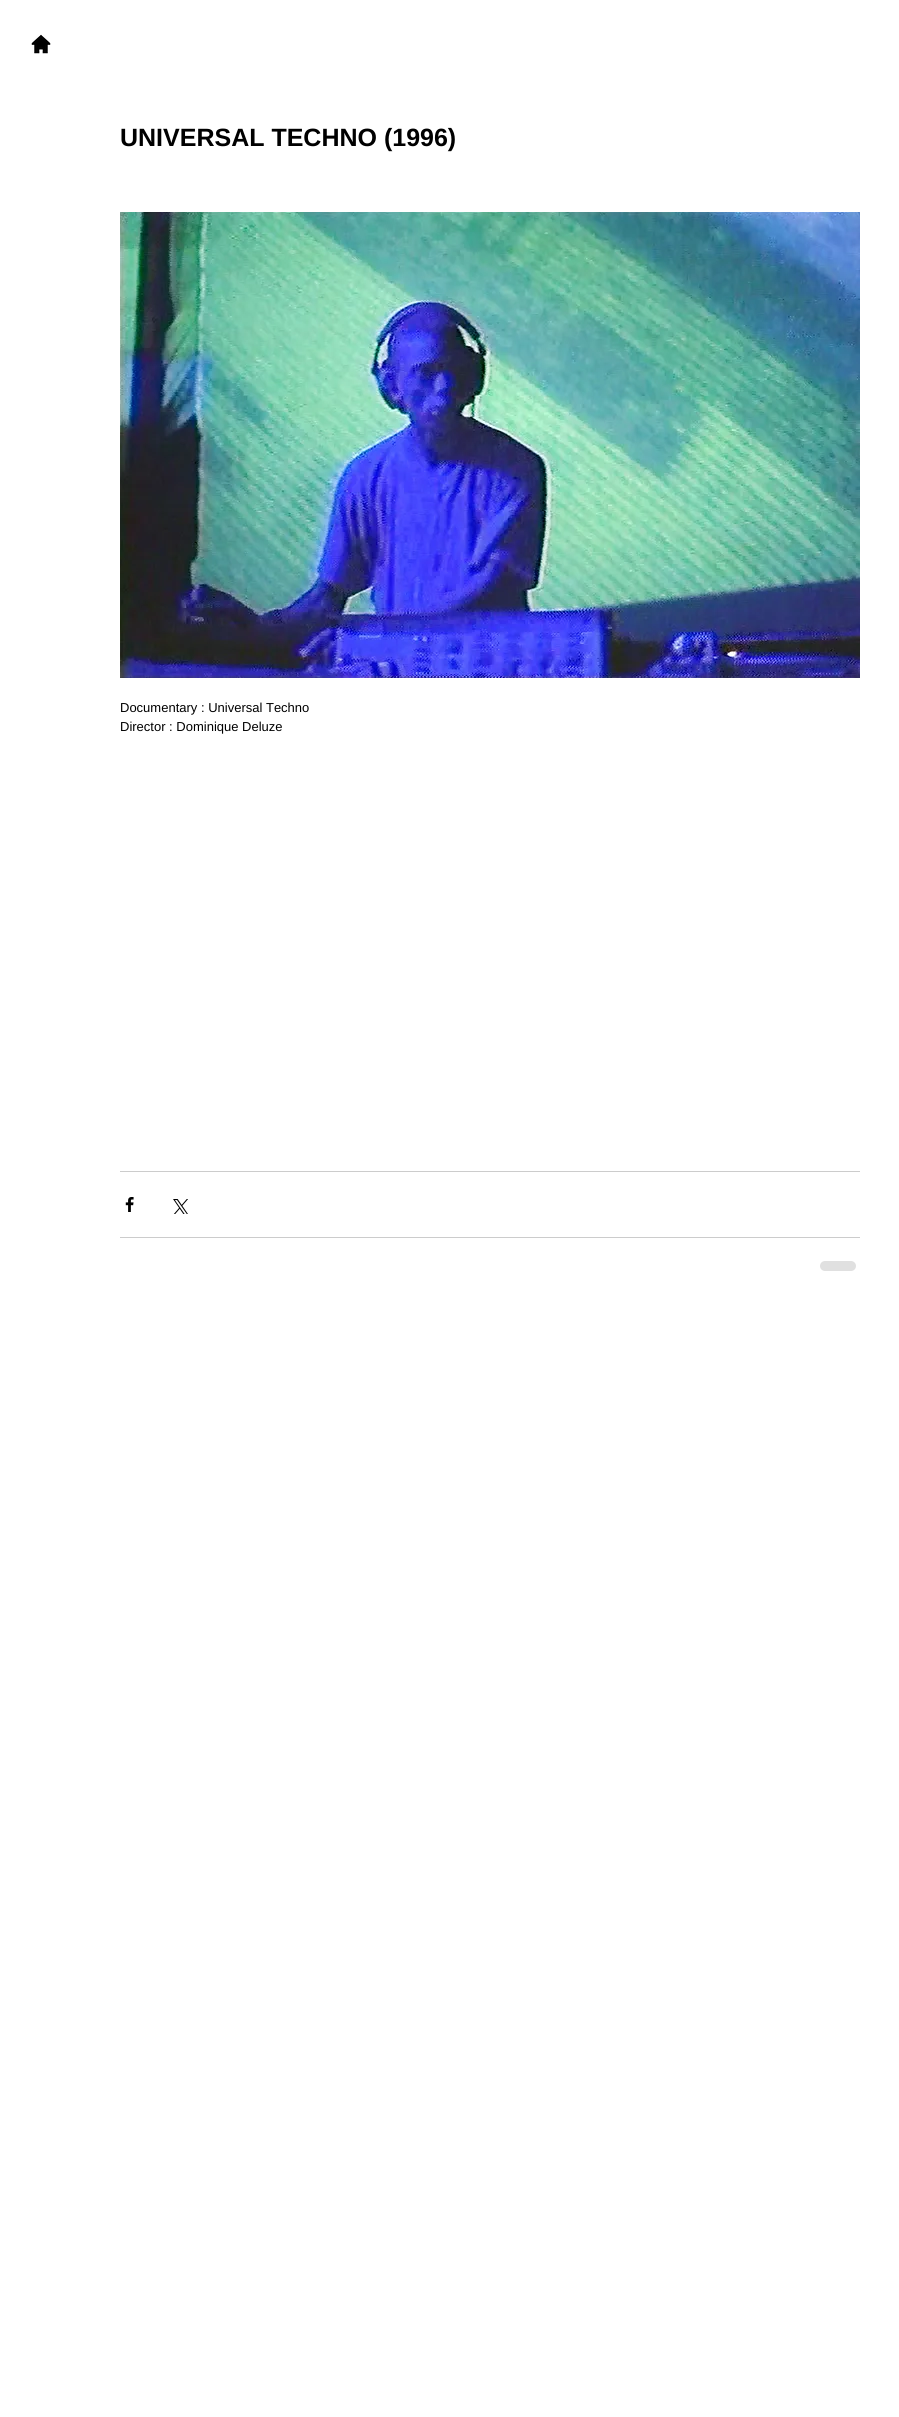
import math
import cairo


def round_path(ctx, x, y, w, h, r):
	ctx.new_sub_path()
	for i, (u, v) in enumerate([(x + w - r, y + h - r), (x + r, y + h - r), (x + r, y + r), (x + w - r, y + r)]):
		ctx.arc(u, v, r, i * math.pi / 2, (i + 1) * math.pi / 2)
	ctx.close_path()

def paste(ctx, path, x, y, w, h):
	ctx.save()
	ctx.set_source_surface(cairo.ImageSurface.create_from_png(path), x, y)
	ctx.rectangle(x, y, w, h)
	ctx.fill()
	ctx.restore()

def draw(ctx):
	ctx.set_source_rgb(1, 1, 1)
	ctx.paint()
	paste(ctx, 'media/1.png', 31, 34, 20, 20)
	ctx.select_font_face('Liberation Sans', cairo.FONT_SLANT_NORMAL, cairo.FONT_WEIGHT_BOLD)
	ctx.set_font_size(25)
	ctx.set_source_rgb(0, 0, 0)
	ctx.move_to(120, 146)
	ctx.show_text('UNIVERSAL TECHNO (1996)')
	paste(ctx, 'media/2.png', 120, 212, 740, 466)
	ctx.select_font_face('Liberation Sans')
	ctx.set_font_size(13)
	ctx.move_to(120, 712)
	ctx.show_text('Documentary : Universal Techno')
	ctx.move_to(120, 731)
	ctx.show_text('Director : Dominique Deluze')
	ctx.set_source_rgb(0.8, 0.8, 0.8)
	ctx.rectangle(120, 1171, 740, 1)
	ctx.fill()
	paste(ctx, 'media/3.png', 125, 1197, 9, 15)
	paste(ctx, 'media/4.png', 173, 1199, 15, 15)
	ctx.rectangle(120, 1237, 740, 1)
	ctx.fill()
	ctx.set_source_rgb(0.878, 0.878, 0.878)
	round_path(ctx, 820, 1261, 36, 10, 5)
	ctx.fill()


surface = cairo.ImageSurface(cairo.FORMAT_RGB24, 899, 2417)
ctx = cairo.Context(surface)
options = cairo.FontOptions()
options.set_hint_metrics(cairo.HINT_METRICS_OFF)
options.set_hint_style(cairo.HINT_STYLE_NONE)
ctx.set_font_options(options)
ctx.set_miter_limit(4)
draw(ctx)
surface.write_to_png('image.png')
